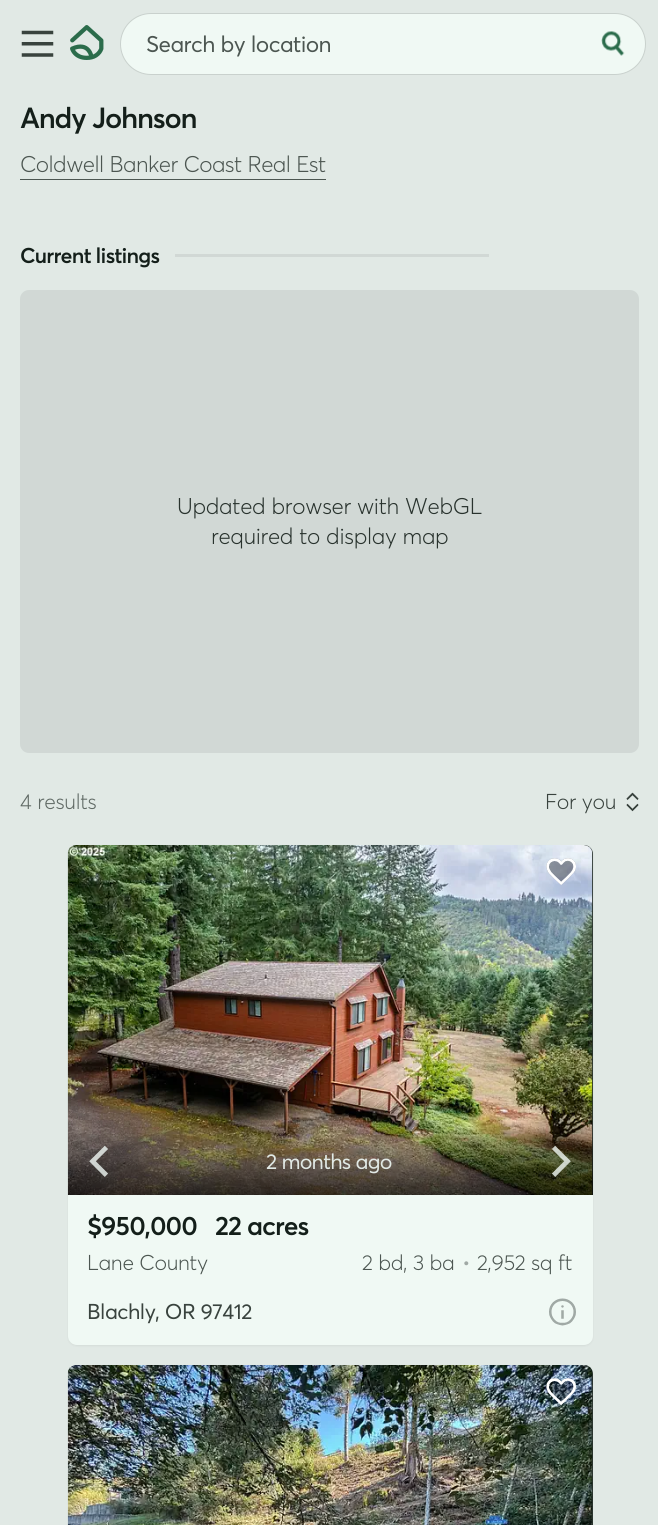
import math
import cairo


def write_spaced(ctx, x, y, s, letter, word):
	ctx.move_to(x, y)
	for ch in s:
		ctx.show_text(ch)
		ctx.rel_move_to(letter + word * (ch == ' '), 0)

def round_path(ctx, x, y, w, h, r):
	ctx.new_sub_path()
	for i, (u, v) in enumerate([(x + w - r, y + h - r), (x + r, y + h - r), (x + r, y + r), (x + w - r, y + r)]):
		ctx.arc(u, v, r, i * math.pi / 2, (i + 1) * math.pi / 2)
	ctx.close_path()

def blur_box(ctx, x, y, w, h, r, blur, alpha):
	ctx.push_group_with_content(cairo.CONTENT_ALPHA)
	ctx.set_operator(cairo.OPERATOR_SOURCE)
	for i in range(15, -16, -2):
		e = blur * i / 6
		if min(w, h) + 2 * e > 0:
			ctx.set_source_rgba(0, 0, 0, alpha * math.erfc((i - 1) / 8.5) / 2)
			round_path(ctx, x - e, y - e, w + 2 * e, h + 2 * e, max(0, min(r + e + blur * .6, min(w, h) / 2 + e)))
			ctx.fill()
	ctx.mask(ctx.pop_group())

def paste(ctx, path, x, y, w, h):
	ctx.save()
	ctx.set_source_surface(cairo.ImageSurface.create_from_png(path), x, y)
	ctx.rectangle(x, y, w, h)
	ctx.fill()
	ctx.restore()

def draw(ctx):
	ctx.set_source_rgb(0.882, 0.914, 0.898)
	ctx.paint()
	paste(ctx, 'media/1.png', 21, 30, 33, 27)
	paste(ctx, 'media/2.png', 70, 25, 34, 35)
	ctx.set_source_rgb(0.941, 0.973, 0.957)
	round_path(ctx, 120.5, 13.5, 525, 61, 30.5)
	ctx.fill_preserve()
	ctx.set_source_rgb(0.788, 0.82, 0.804)
	ctx.set_line_width(1)
	ctx.stroke()
	ctx.select_font_face('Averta')
	ctx.set_font_size(22.5)
	ctx.set_source_rgb(0.298, 0.337, 0.318)
	write_spaced(ctx, 146, 52, 'Search by location', -0.55, 0)
	paste(ctx, 'media/3.png', 601, 31, 24, 25)
	ctx.select_font_face('Averta SemiBold')
	ctx.set_font_size(28.75)
	ctx.set_source_rgb(0.082, 0.122, 0.102)
	write_spaced(ctx, 20, 128, 'Andy Johnson', -1.25, 0)
	ctx.select_font_face('Averta Light')
	ctx.set_font_size(22.5)
	ctx.set_source_rgb(0.298, 0.337, 0.318)
	write_spaced(ctx, 20, 172, 'Coldwell Banker Coast Real Est', -0.55, 0)
	ctx.rectangle(20, 179, 306, 1)
	ctx.fill()
	ctx.select_font_face('Averta SemiBold')
	ctx.set_font_size(21.25)
	ctx.set_source_rgb(0.082, 0.122, 0.102)
	write_spaced(ctx, 20, 263, 'Current listings', -0.75, 0)
	ctx.set_source_rgb(0.82, 0.847, 0.835)
	ctx.rectangle(175, 254, 314, 3)
	ctx.fill()
	round_path(ctx, 20, 290, 619, 463, 9)
	ctx.fill()
	ctx.select_font_face('Averta Light')
	ctx.set_font_size(22.5)
	ctx.set_source_rgb(0.161, 0.2, 0.18)
	write_spaced(ctx, 177, 514, 'Updated browser with WebGL', -0.3, 0)
	write_spaced(ctx, 211, 544, 'required to display map', -0.3, 0)
	ctx.set_font_size(21.25)
	ctx.set_source_rgb(0.376, 0.416, 0.396)
	write_spaced(ctx, 20, 809, '4 results', -0.3, 0)
	ctx.set_source_rgb(0.224, 0.263, 0.243)
	write_spaced(ctx, 545, 809, 'For you', -0.3, 0)
	paste(ctx, 'media/4.png', 626, 792, 13, 20)
	ctx.set_source_rgb(0, 0, 0)
	blur_box(ctx, 68, 846, 525, 500, 9, 1, 0.06)
	ctx.set_source_rgb(0.941, 0.973, 0.957)
	round_path(ctx, 68, 845, 525, 500, 9)
	ctx.fill()
	ctx.set_source_rgb(0.161, 0.2, 0.18)
	ctx.new_path()
	ctx.move_to(77, 845)
	ctx.line_to(584, 845)
	ctx.curve_to(589, 845, 593, 849, 593, 854)
	ctx.line_to(593, 1195)
	ctx.line_to(68, 1195)
	ctx.line_to(68, 854)
	ctx.curve_to(68, 849, 72, 845, 77, 845)
	ctx.close_path()
	ctx.fill()
	paste(ctx, 'media/5.png', 67, 845, 526, 350)
	paste(ctx, 'media/6.png', 546, 858, 30, 27)
	gradient = cairo.LinearGradient(333, 1120, 333, 1195)
	gradient.add_color_stop_rgba(0, 0, 0, 0, 0)
	gradient.add_color_stop_rgba(1, 0, 0, 0, 0.7)
	ctx.set_source(gradient)
	ctx.rectangle(68, 1122, 525, 73)
	ctx.fill()
	paste(ctx, 'media/7.png', 89, 1145, 19, 32)
	ctx.select_font_face('Averta')
	ctx.set_source_rgb(0.882, 0.914, 0.898)
	write_spaced(ctx, 266, 1169, '2 months ago', -0.75, 0)
	paste(ctx, 'media/8.png', 552, 1145, 19, 32)
	ctx.select_font_face('Averta SemiBold')
	ctx.set_font_size(26.25)
	ctx.set_source_rgb(0.082, 0.122, 0.102)
	write_spaced(ctx, 87, 1235, '$950,000', -1, 0)
	write_spaced(ctx, 215, 1235, '22 acres', -1, 0)
	ctx.select_font_face('Averta Light')
	ctx.set_font_size(21.25)
	ctx.set_source_rgb(0.298, 0.337, 0.318)
	write_spaced(ctx, 87, 1270, 'Lane County', -0.3, 0)
	write_spaced(ctx, 362, 1270, '2 bd, 3 ba', -0.3, 0)
	ctx.set_source_rgb(0.627, 0.663, 0.647)
	write_spaced(ctx, 462, 1270, '•', -0.3, 0)
	ctx.set_source_rgb(0.298, 0.337, 0.318)
	write_spaced(ctx, 477, 1270, '2,952 sq ft', -0.3, 0)
	ctx.select_font_face('Averta')
	ctx.set_source_rgb(0.224, 0.263, 0.243)
	write_spaced(ctx, 87, 1319, 'Blachly, OR 97412', -0.5, 0)
	paste(ctx, 'media/9.png', 549, 1298, 27, 28)
	ctx.set_source_rgb(0.161, 0.2, 0.18)
	ctx.new_path()
	ctx.move_to(77, 1365)
	ctx.line_to(584, 1365)
	ctx.curve_to(589, 1365, 593, 1369, 593, 1374)
	ctx.line_to(593, 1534)
	ctx.line_to(68, 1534)
	ctx.line_to(68, 1374)
	ctx.curve_to(68, 1369, 72, 1365, 77, 1365)
	ctx.close_path()
	ctx.fill()
	paste(ctx, 'media/10.png', 67, 1365, 526, 160)
	paste(ctx, 'media/11.png', 546, 1378, 31, 28)


surface = cairo.ImageSurface(cairo.FORMAT_RGB24, 658, 1525)
ctx = cairo.Context(surface)
options = cairo.FontOptions()
options.set_hint_metrics(cairo.HINT_METRICS_OFF)
options.set_hint_style(cairo.HINT_STYLE_NONE)
ctx.set_font_options(options)
ctx.set_miter_limit(4)
draw(ctx)
surface.write_to_png('image.png')
